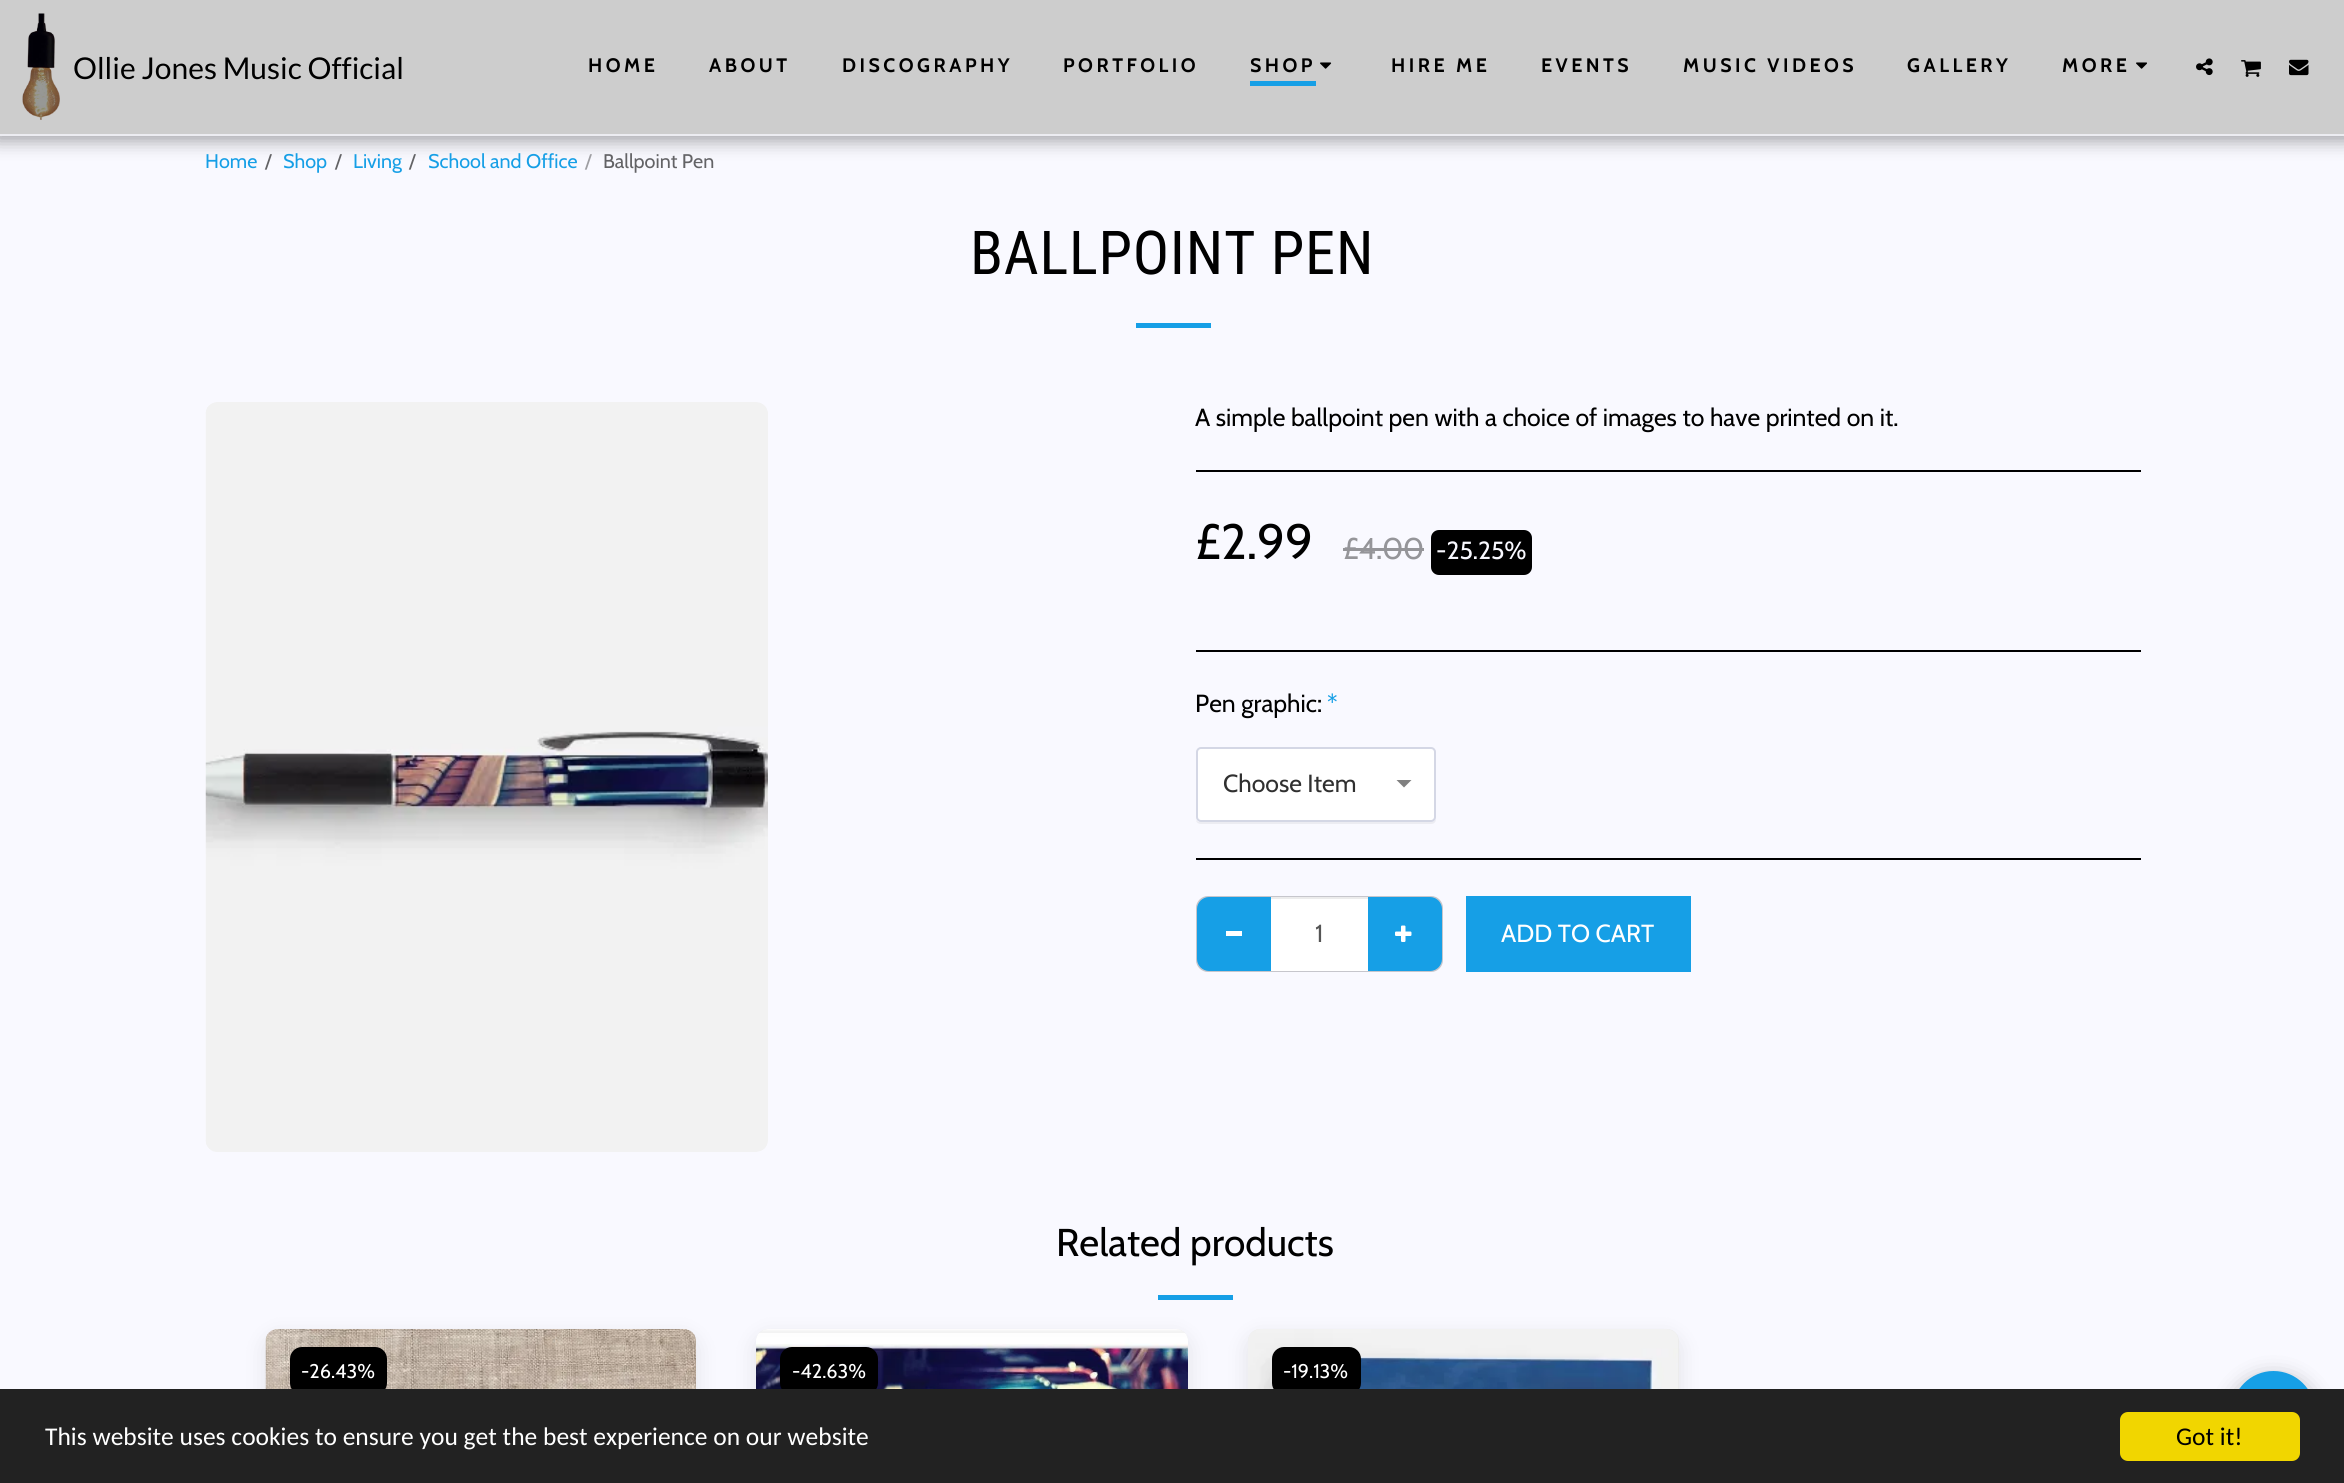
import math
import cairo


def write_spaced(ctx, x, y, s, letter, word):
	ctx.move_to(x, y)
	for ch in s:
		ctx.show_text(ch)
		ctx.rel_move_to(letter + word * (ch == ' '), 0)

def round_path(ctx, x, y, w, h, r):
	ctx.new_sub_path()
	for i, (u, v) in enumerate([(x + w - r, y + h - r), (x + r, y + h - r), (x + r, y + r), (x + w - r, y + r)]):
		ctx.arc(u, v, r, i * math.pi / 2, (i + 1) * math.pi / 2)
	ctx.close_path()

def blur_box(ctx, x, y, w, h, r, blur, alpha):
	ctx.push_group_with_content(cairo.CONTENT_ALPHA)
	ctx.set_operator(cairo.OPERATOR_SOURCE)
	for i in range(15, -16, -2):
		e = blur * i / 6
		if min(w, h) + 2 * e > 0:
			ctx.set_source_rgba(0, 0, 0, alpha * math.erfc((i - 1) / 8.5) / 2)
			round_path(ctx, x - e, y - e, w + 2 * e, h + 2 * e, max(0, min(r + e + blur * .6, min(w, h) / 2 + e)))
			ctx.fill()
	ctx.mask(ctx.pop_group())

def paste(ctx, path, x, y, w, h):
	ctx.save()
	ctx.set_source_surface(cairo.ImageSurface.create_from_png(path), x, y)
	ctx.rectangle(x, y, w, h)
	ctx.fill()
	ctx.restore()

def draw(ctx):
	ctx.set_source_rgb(0.973, 0.973, 1)
	ctx.paint()
	ctx.set_source_rgb(0, 0, 0)
	blur_box(ctx, -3, 0, 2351, 141, 0, 9, 0.35)
	ctx.set_source_rgb(0.804, 0.804, 0.804)
	ctx.rectangle(0, 0, 2344, 134)
	ctx.fill()
	ctx.set_source_rgb(0.922, 0.925, 0.945)
	ctx.rectangle(0, 134, 2344, 2)
	ctx.fill()
	paste(ctx, 'media/1.png', 22, 13, 38, 107)
	ctx.select_font_face('Lato')
	ctx.set_font_size(30)
	ctx.set_source_rgb(0, 0, 0)
	ctx.move_to(73, 79)
	ctx.show_text('Ollie Jones Music Official')
	ctx.select_font_face('Cabin', cairo.FONT_SLANT_NORMAL, cairo.FONT_WEIGHT_BOLD)
	ctx.set_font_size(19.5)
	for x, y, s in [
		(588, 72, 'HOME'),
		(709, 72, 'ABOUT'),
		(842, 72, 'DISCOGRAPHY'),
		(1063, 72, 'PORTFOLIO'),
		(1250, 72, 'SHOP'),
	]:
		write_spaced(ctx, x, y, s, 3.5, 0)
	ctx.set_source_rgb(0.086, 0.624, 0.902)
	ctx.rectangle(1250, 81, 66, 5)
	ctx.fill()
	paste(ctx, 'media/2.png', 1320, 62, 12, 7)
	ctx.set_source_rgb(0, 0, 0)
	for x, y, s in [
		(1391, 72, 'HIRE ME'),
		(1541, 72, 'EVENTS'),
		(1683, 72, 'MUSIC VIDEOS'),
		(1907, 72, 'GALLERY'),
		(2062, 72, 'MORE'),
	]:
		write_spaced(ctx, x, y, s, 3.5, 0)
	paste(ctx, 'media/3.png', 2136, 62, 11, 7)
	paste(ctx, 'media/4.png', 2196, 58, 17, 18)
	paste(ctx, 'media/5.png', 2241, 60, 20, 17)
	paste(ctx, 'media/6.png', 2289, 59, 20, 17)
	ctx.select_font_face('Cabin')
	ctx.set_font_size(19.75)
	ctx.set_source_rgb(0.086, 0.624, 0.902)
	ctx.move_to(205, 168)
	ctx.show_text('Home')
	ctx.set_source_rgb(0.388, 0.388, 0.4)
	ctx.move_to(265, 168)
	ctx.show_text('/')
	ctx.set_source_rgb(0.086, 0.624, 0.902)
	ctx.move_to(283, 168)
	ctx.show_text('Shop')
	ctx.set_source_rgb(0.388, 0.388, 0.4)
	ctx.move_to(335, 168)
	ctx.show_text('/')
	ctx.set_source_rgb(0.086, 0.624, 0.902)
	ctx.move_to(353, 168)
	ctx.show_text('Living')
	ctx.set_source_rgb(0.388, 0.388, 0.4)
	ctx.move_to(409, 168)
	ctx.show_text('/')
	ctx.set_source_rgb(0.086, 0.624, 0.902)
	ctx.move_to(428, 168)
	ctx.show_text('School and Office')
	ctx.set_source_rgb(0.624, 0.624, 0.639)
	ctx.move_to(585, 168)
	ctx.show_text('/')
	ctx.set_source_rgb(0.388, 0.388, 0.4)
	ctx.move_to(603, 168)
	ctx.show_text('Ballpoint Pen')
	ctx.select_font_face('Roboto Condensed')
	ctx.set_font_size(60.5)
	ctx.set_source_rgb(0, 0, 0)
	write_spaced(ctx, 970, 274, 'BALLPOINT PEN', 0.75, 0)
	ctx.set_source_rgb(0.086, 0.624, 0.902)
	ctx.rectangle(1136, 323, 75, 5)
	ctx.fill()
	paste(ctx, 'media/7.png', 205, 402, 563, 750)
	ctx.select_font_face('Cabin')
	ctx.set_font_size(24.75)
	ctx.set_source_rgb(0, 0, 0)
	ctx.move_to(1195, 426)
	ctx.show_text('A simple ballpoint pen with a choice of images to have printed on it.')
	ctx.rectangle(1196, 470, 945, 2)
	ctx.fill()
	ctx.set_font_size(49.5)
	ctx.move_to(1195, 559)
	ctx.show_text('£2.99')
	ctx.set_font_size(30)
	ctx.set_source_rgb(0.584, 0.584, 0.6)
	ctx.move_to(1343, 559)
	ctx.show_text('£4.00')
	ctx.rectangle(1343, 548, 81, 3)
	ctx.fill()
	ctx.set_source_rgb(0, 0, 0)
	round_path(ctx, 1431, 530, 101, 45, 8)
	ctx.fill()
	ctx.set_font_size(24.75)
	ctx.set_source_rgb(0.973, 0.973, 1)
	ctx.move_to(1436, 559)
	ctx.show_text('-25.25%')
	ctx.set_source_rgb(0, 0, 0)
	ctx.rectangle(1196, 650, 945, 2)
	ctx.fill()
	ctx.move_to(1195, 712)
	ctx.show_text('Pen graphic:')
	ctx.set_source_rgb(0.086, 0.624, 0.902)
	ctx.move_to(1327, 712)
	ctx.show_text('*')
	ctx.set_source_rgb(0.925, 0.925, 0.949)
	ctx.new_path()
	ctx.move_to(1196, 820)
	ctx.curve_to(1196, 822, 1198, 824, 1201, 824)
	ctx.line_to(1431, 824)
	ctx.curve_to(1434, 824, 1436, 822, 1436, 819)
	ctx.line_to(1436, 754)
	ctx.line_to(1436, 752)
	ctx.line_to(1436, 818)
	ctx.curve_to(1436, 820, 1433, 822, 1431, 822)
	ctx.line_to(1200, 822)
	ctx.curve_to(1198, 822, 1197, 821, 1196, 820)
	ctx.close_path()
	ctx.fill()
	ctx.set_source_rgb(1, 1, 1)
	round_path(ctx, 1197, 748, 238, 73, 4)
	ctx.fill_preserve()
	ctx.set_source_rgb(0.831, 0.843, 0.898)
	ctx.stroke()
	ctx.set_source_rgb(0.188, 0.188, 0.188)
	ctx.move_to(1223, 792)
	ctx.show_text('Choose Item')
	ctx.set_source_rgb(0.502, 0.502, 0.502)
	ctx.new_path()
	ctx.move_to(1396.5, 780)
	ctx.line_to(1411.5, 780)
	ctx.line_to(1404, 787.5)
	ctx.close_path()
	ctx.fill()
	ctx.set_source_rgb(0, 0, 0)
	ctx.rectangle(1196, 858, 945, 2)
	ctx.fill()
	round_path(ctx, 1197, 897, 245, 74, 11)
	ctx.set_source_rgb(0.776, 0.776, 0.8)
	ctx.stroke()
	ctx.set_source_rgb(0.086, 0.624, 0.902)
	ctx.new_path()
	ctx.move_to(1209, 897)
	ctx.line_to(1272, 897)
	ctx.line_to(1272, 971)
	ctx.line_to(1209, 971)
	ctx.curve_to(1202.5, 971, 1197, 965.5, 1197, 959)
	ctx.line_to(1197, 909)
	ctx.curve_to(1197, 902.5, 1202.5, 897, 1209, 897)
	ctx.close_path()
	ctx.fill()
	ctx.set_source_rgb(1, 1, 1)
	ctx.rectangle(1226, 931, 16, 5)
	ctx.fill()
	ctx.set_source_rgb(0.086, 0.624, 0.902)
	ctx.new_path()
	ctx.move_to(1367, 897)
	ctx.line_to(1430, 897)
	ctx.curve_to(1436.5, 897, 1442, 902.5, 1442, 909)
	ctx.line_to(1442, 959)
	ctx.curve_to(1442, 965.5, 1436.5, 971, 1430, 971)
	ctx.line_to(1367, 971)
	ctx.close_path()
	ctx.fill()
	ctx.set_source_rgb(1, 1, 1)
	ctx.rectangle(1271, 899, 97, 72)
	ctx.fill()
	ctx.set_source_rgb(0.925, 0.925, 0.925)
	ctx.rectangle(1271, 897, 97, 2)
	ctx.fill()
	ctx.set_source_rgb(0.333, 0.333, 0.333)
	ctx.move_to(1315, 942)
	ctx.show_text('1')
	paste(ctx, 'media/8.png', 1395, 925, 17, 17)
	ctx.set_source_rgb(0.086, 0.624, 0.902)
	ctx.rectangle(1466, 896, 225, 76)
	ctx.fill()
	ctx.set_source_rgb(1, 1, 1)
	ctx.move_to(1501, 942)
	ctx.show_text('ADD TO CART')
	ctx.set_font_size(38.75)
	ctx.set_source_rgb(0, 0, 0)
	ctx.move_to(1056, 1256)
	ctx.show_text('Related products')
	ctx.set_source_rgb(0.086, 0.624, 0.902)
	ctx.rectangle(1158, 1295, 75, 5)
	ctx.fill()
	ctx.set_source_rgb(0.506, 0.506, 0.506)
	blur_box(ctx, 266, 1337, 430, 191, 12, 11, 0.2)
	paste(ctx, 'media/9.png', 265, 1329, 431, 60)
	ctx.set_source_rgb(0, 0, 0)
	round_path(ctx, 290, 1347, 97, 48, 12)
	ctx.fill()
	ctx.set_font_size(19.75)
	ctx.set_source_rgb(1, 1, 1)
	ctx.move_to(301, 1378)
	ctx.show_text('-26.43%')
	ctx.set_source_rgb(0.506, 0.506, 0.506)
	blur_box(ctx, 756, 1337, 432, 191, 12, 11, 0.2)
	ctx.set_source_rgb(0.922, 0.922, 0.922)
	round_path(ctx, 756, 1329, 432, 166, 12)
	ctx.fill()
	paste(ctx, 'media/10.png', 756, 1329, 432, 60)
	ctx.set_source_rgb(0, 0, 0)
	round_path(ctx, 780, 1347, 98, 48, 12)
	ctx.fill()
	ctx.set_source_rgb(1, 1, 1)
	ctx.move_to(792, 1378)
	ctx.show_text('-42.63%')
	ctx.set_source_rgb(0.506, 0.506, 0.506)
	blur_box(ctx, 1248, 1337, 431, 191, 12, 11, 0.2)
	ctx.set_source_rgb(0.922, 0.922, 0.922)
	round_path(ctx, 1248, 1329, 431, 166, 12)
	ctx.fill()
	paste(ctx, 'media/11.png', 1248, 1329, 430, 60)
	ctx.set_source_rgb(0, 0, 0)
	round_path(ctx, 1272, 1347, 89, 48, 12)
	ctx.fill()
	ctx.set_source_rgb(1, 1, 1)
	ctx.move_to(1283, 1378)
	ctx.show_text('-19.13%')
	ctx.set_source_rgb(0, 0, 0)
	blur_box(ctx, 2232, 1379, 83, 82, 41, 11, 0.35)
	ctx.set_source_rgb(0.086, 0.624, 0.902)
	ctx.arc(2273.5, 1412.5, 40.5, 0, 2 * math.pi)
	ctx.fill_preserve()
	ctx.stroke()
	ctx.set_source_rgb(0.133, 0.133, 0.133)
	ctx.rectangle(0, 1389, 2344, 94)
	ctx.fill()
	ctx.select_font_face('Carlito')
	ctx.set_font_size(25.5)
	ctx.set_source_rgb(1, 1, 1)
	ctx.move_to(45, 1445)
	ctx.show_text('This website uses cookies to ensure you get the best experience on our website')
	ctx.set_source_rgb(0.945, 0.839, 0)
	round_path(ctx, 2120, 1412, 180, 49, 8)
	ctx.fill()
	ctx.set_source_rgb(0, 0, 0)
	ctx.move_to(2176, 1445)
	ctx.show_text('Got it!')


surface = cairo.ImageSurface(cairo.FORMAT_RGB24, 2344, 1483)
ctx = cairo.Context(surface)
options = cairo.FontOptions()
options.set_hint_metrics(cairo.HINT_METRICS_OFF)
options.set_hint_style(cairo.HINT_STYLE_NONE)
ctx.set_font_options(options)
ctx.set_miter_limit(4)
draw(ctx)
surface.write_to_png('image.png')
